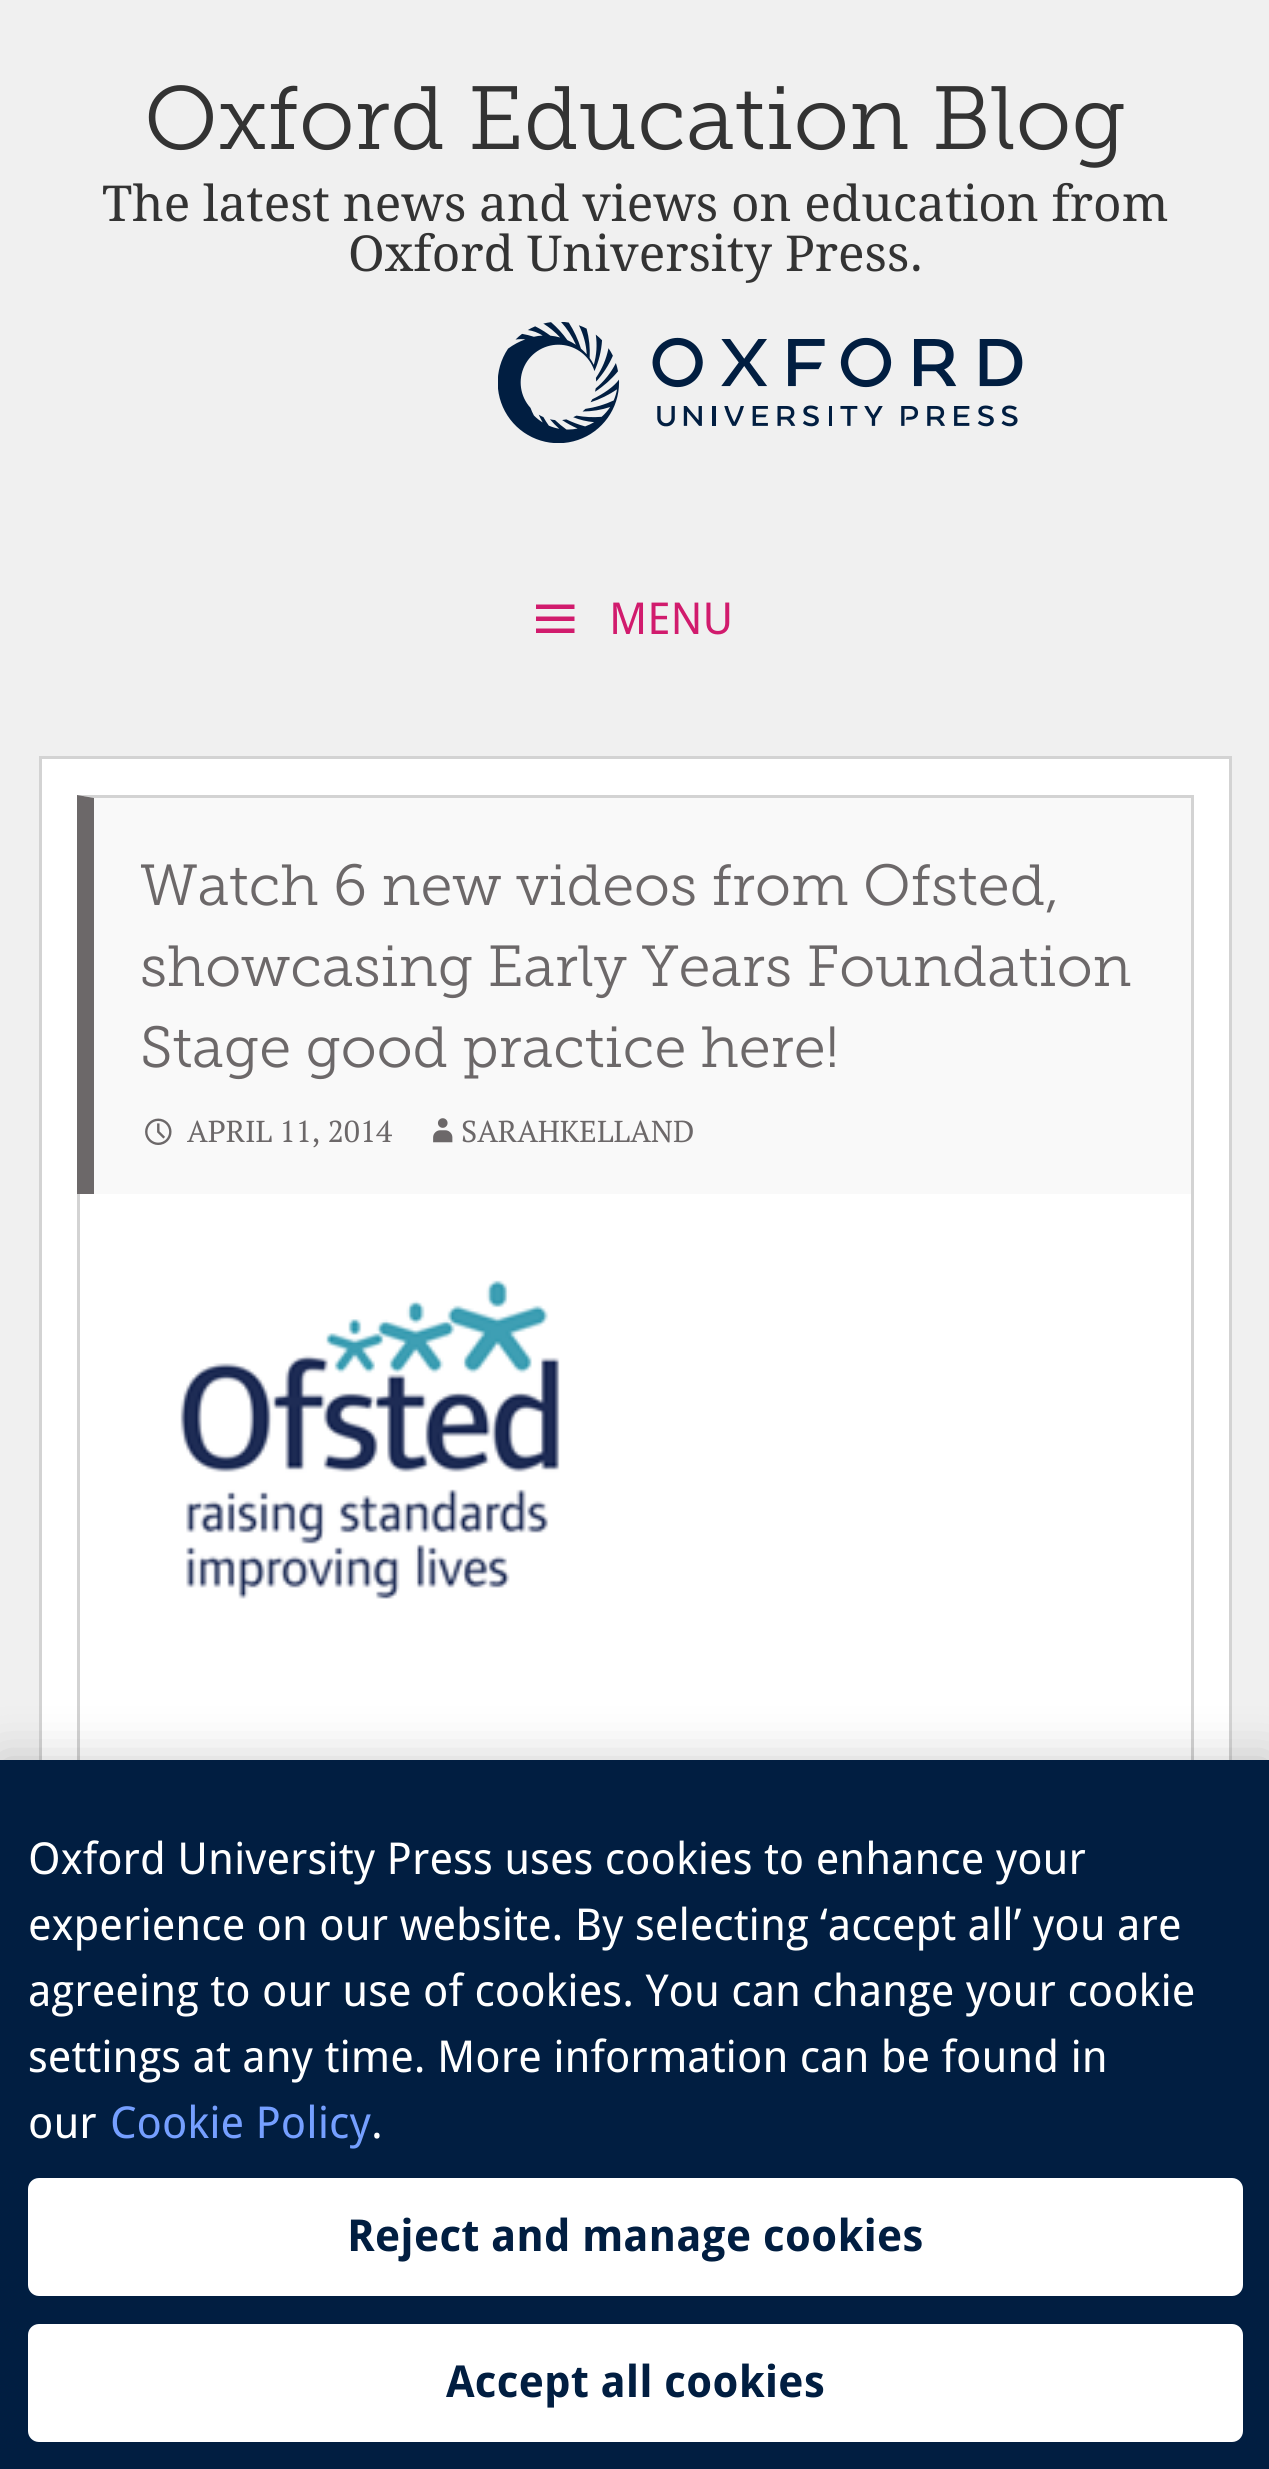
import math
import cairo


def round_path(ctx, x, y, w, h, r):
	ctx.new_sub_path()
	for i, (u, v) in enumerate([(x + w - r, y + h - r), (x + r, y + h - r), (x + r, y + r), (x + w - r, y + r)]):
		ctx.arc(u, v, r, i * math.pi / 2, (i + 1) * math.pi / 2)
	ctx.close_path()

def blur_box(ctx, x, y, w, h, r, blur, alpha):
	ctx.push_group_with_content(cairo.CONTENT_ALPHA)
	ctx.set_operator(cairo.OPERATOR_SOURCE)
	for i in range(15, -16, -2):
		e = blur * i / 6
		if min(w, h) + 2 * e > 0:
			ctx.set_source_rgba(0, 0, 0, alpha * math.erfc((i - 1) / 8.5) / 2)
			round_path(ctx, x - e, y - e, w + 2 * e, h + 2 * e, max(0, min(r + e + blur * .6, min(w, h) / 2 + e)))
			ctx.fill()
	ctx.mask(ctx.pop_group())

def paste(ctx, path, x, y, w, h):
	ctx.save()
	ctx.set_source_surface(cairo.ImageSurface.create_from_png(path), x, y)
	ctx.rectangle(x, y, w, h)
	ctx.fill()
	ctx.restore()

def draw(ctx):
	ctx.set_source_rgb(0.941, 0.941, 0.941)
	ctx.paint()
	ctx.select_font_face('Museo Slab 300 Light')
	ctx.set_font_size(89.4)
	ctx.set_source_rgb(0.2, 0.2, 0.2)
	ctx.move_to(144, 149)
	ctx.show_text('Oxford Education Blog')
	ctx.select_font_face('Droid Serif')
	ctx.set_font_size(49.5)
	ctx.move_to(102, 221)
	ctx.show_text('The latest news and views on education from')
	ctx.move_to(348, 271)
	ctx.show_text('Oxford University Press.')
	paste(ctx, 'media/1.png', 498, 322, 525, 121)
	ctx.set_source_rgb(0.82, 0.106, 0.427)
	ctx.new_path()
	ctx.move_to(536, 633)
	ctx.line_to(536, 628.5)
	ctx.line_to(574.5, 628.5)
	ctx.line_to(574.5, 633)
	ctx.close_path()
	ctx.move_to(536, 604.5)
	ctx.line_to(574.5, 604.5)
	ctx.line_to(574.5, 609)
	ctx.line_to(536, 609)
	ctx.close_path()
	ctx.move_to(536, 621)
	ctx.line_to(536, 616.5)
	ctx.line_to(574.5, 616.5)
	ctx.line_to(574.5, 621)
	ctx.close_path()
	ctx.fill()
	ctx.select_font_face('Droid Sans')
	ctx.set_font_size(44)
	ctx.move_to(609, 634)
	ctx.show_text('MENU')
	ctx.set_source_rgb(1, 1, 1)
	ctx.rectangle(42, 759, 1187, 1001)
	ctx.fill()
	ctx.rectangle(40.5, 757.5, 1190, 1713)
	ctx.set_source_rgb(0.827, 0.827, 0.827)
	ctx.set_line_width(3)
	ctx.stroke()
	ctx.set_source_rgb(0.976, 0.976, 0.976)
	ctx.rectangle(77, 795, 1114, 399)
	ctx.fill()
	ctx.set_source_rgb(0.827, 0.827, 0.827)
	ctx.new_path()
	ctx.move_to(77, 795)
	ctx.line_to(1194, 795)
	ctx.line_to(1191, 798)
	ctx.line_to(94, 798)
	ctx.close_path()
	ctx.fill()
	ctx.rectangle(1191, 795, 3, 965)
	ctx.fill()
	ctx.set_source_rgb(0.424, 0.408, 0.412)
	ctx.new_path()
	ctx.move_to(77, 1194)
	ctx.line_to(77, 795)
	ctx.line_to(94, 798)
	ctx.line_to(94, 1194)
	ctx.close_path()
	ctx.fill()
	ctx.select_font_face('Museo Slab 300 Light')
	ctx.set_font_size(57.75)
	for x, y, s in [
		(140, 905, 'Watch 6 new videos from Ofsted,'),
		(140, 986, 'showcasing Early Years Foundation'),
		(140, 1067, 'Stage good practice here!'),
	]:
		ctx.move_to(x, y)
		ctx.show_text(s)
	paste(ctx, 'media/2.png', 145, 1118, 27, 27)
	ctx.select_font_face('PT Serif')
	ctx.set_font_size(30.25)
	ctx.move_to(187, 1142)
	ctx.show_text('APRIL 11, 2014')
	paste(ctx, 'media/3.png', 433, 1118, 20, 25)
	ctx.move_to(461, 1142)
	ctx.show_text('SARAHKELLAND')
	ctx.set_source_rgb(0.827, 0.827, 0.827)
	ctx.rectangle(77, 1194, 3, 566)
	ctx.fill()
	paste(ctx, 'media/4.png', 180, 1280, 380, 319)
	ctx.set_source_rgb(0, 0, 0)
	blur_box(ctx, 0, 1760, 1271, 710, 0, 25, 0.2)
	ctx.set_source_rgb(0.004, 0.118, 0.255)
	ctx.rectangle(0, 1760, 1269, 709)
	ctx.fill()
	ctx.select_font_face('Droid Sans')
	ctx.set_font_size(44)
	ctx.set_source_rgb(1, 1, 1)
	for x, y, s in [
		(28, 1874, 'Oxford University Press uses cookies to enhance your'),
		(28, 1940, 'experience on our website. By selecting ‘accept all’ you are'),
		(28, 2006, 'agreeing to our use of cookies. You can change your cookie'),
		(28, 2072, 'settings at any time. More information can be found in'),
		(28, 2138, 'our'),
	]:
		ctx.move_to(x, y)
		ctx.show_text(s)
	ctx.set_source_rgb(0.459, 0.624, 1)
	ctx.move_to(110, 2138)
	ctx.show_text('Cookie Policy')
	ctx.set_source_rgb(1, 1, 1)
	ctx.move_to(371, 2138)
	ctx.show_text('.')
	round_path(ctx, 28, 2178, 1215, 118, 11)
	ctx.fill()
	ctx.select_font_face('Droid Sans', cairo.FONT_SLANT_NORMAL, cairo.FONT_WEIGHT_BOLD)
	ctx.set_source_rgb(0.004, 0.118, 0.255)
	ctx.move_to(347, 2251)
	ctx.show_text('Reject and manage cookies')
	ctx.set_source_rgb(1, 1, 1)
	round_path(ctx, 28, 2324, 1215, 118, 11)
	ctx.fill()
	ctx.set_source_rgb(0.004, 0.118, 0.255)
	ctx.move_to(446, 2397)
	ctx.show_text('Accept all cookies')


surface = cairo.ImageSurface(cairo.FORMAT_RGB24, 1269, 2469)
ctx = cairo.Context(surface)
options = cairo.FontOptions()
options.set_hint_metrics(cairo.HINT_METRICS_OFF)
options.set_hint_style(cairo.HINT_STYLE_NONE)
ctx.set_font_options(options)
ctx.set_miter_limit(4)
draw(ctx)
surface.write_to_png('image.png')
